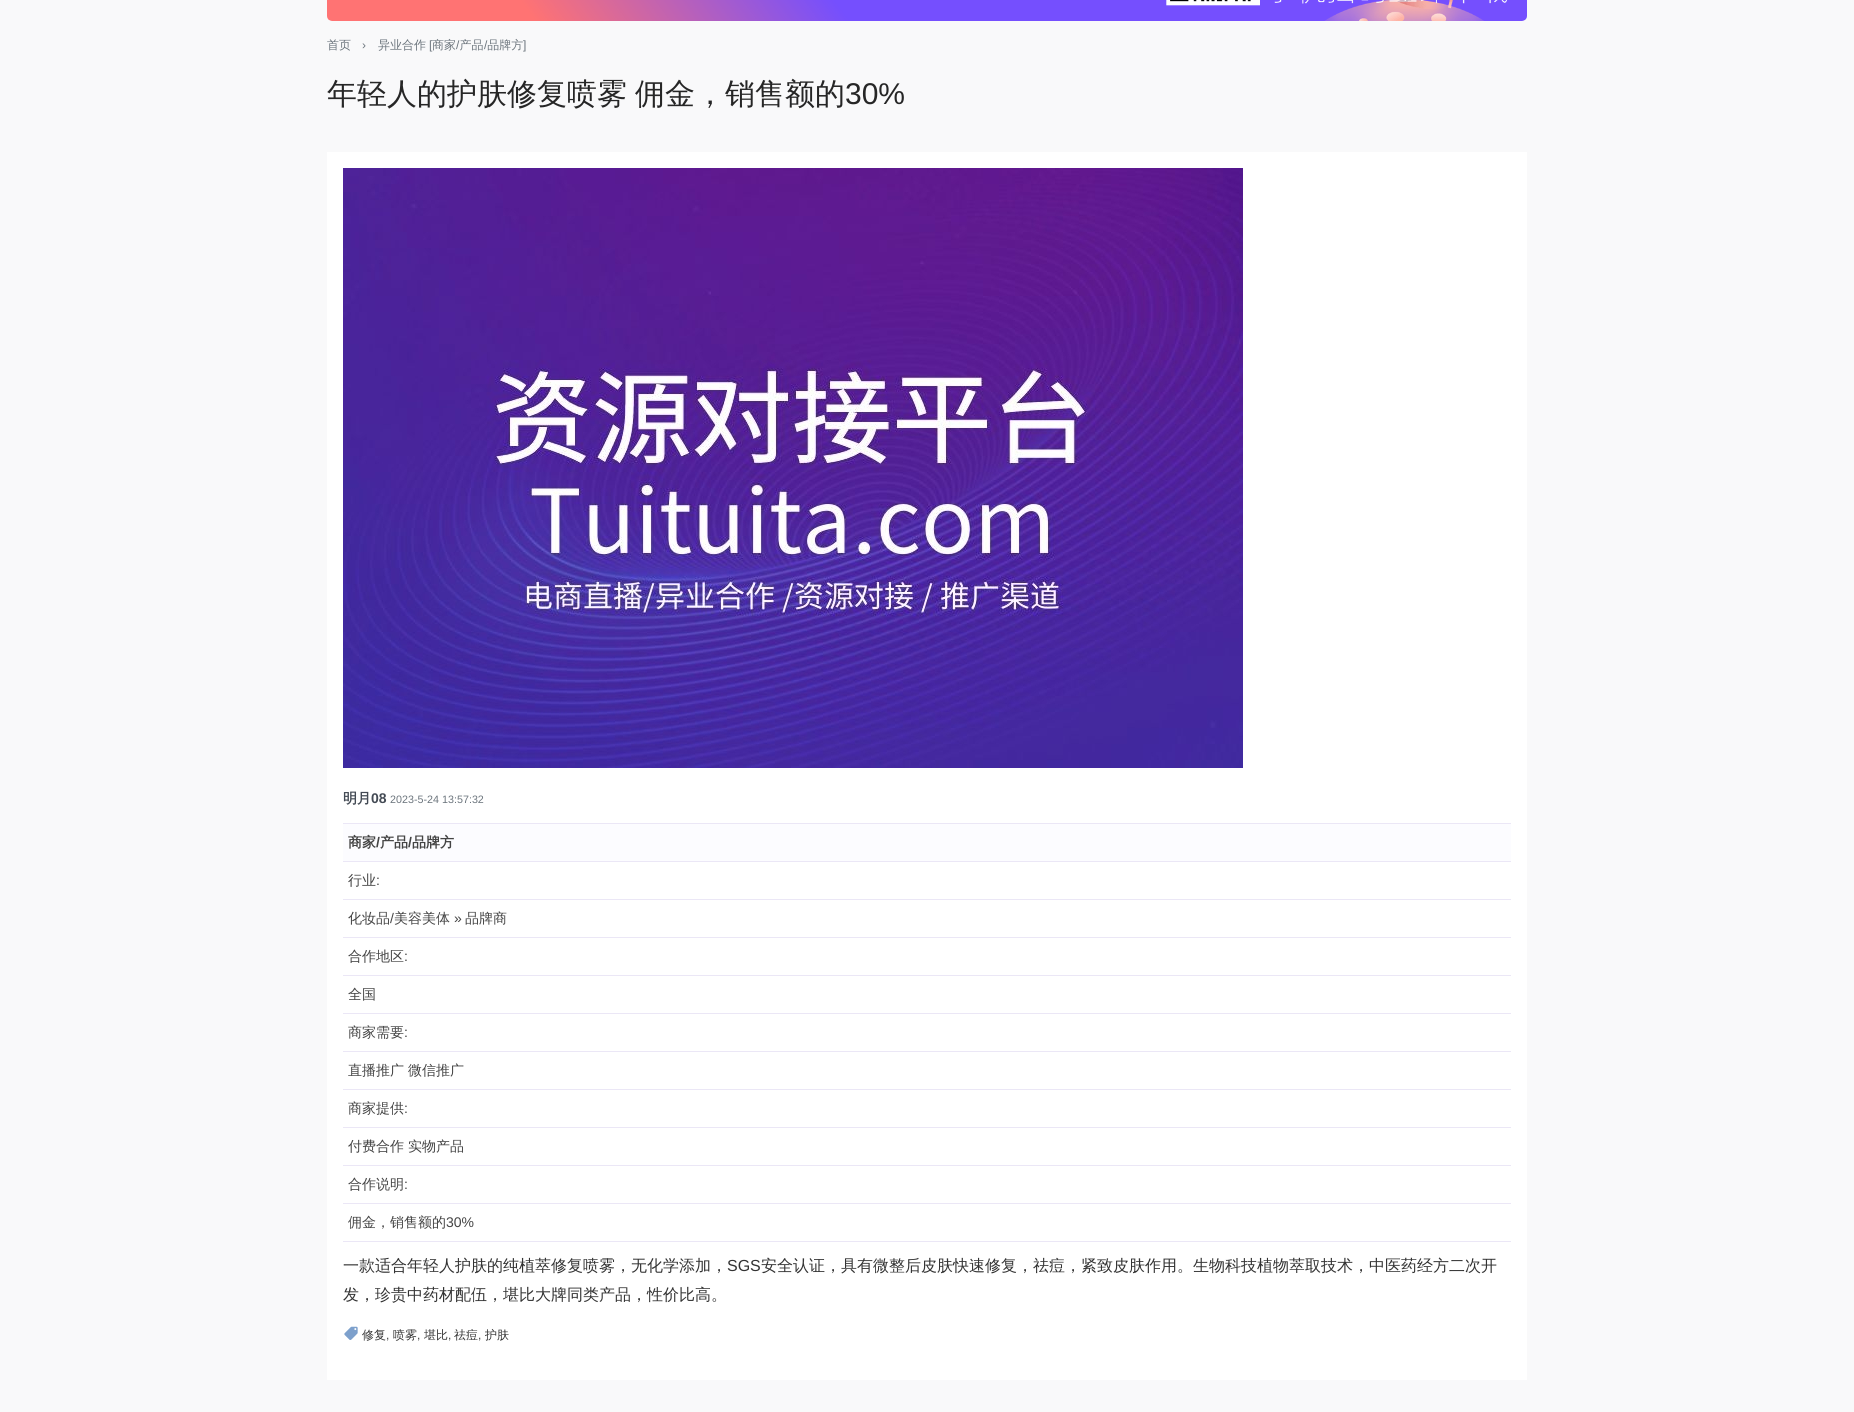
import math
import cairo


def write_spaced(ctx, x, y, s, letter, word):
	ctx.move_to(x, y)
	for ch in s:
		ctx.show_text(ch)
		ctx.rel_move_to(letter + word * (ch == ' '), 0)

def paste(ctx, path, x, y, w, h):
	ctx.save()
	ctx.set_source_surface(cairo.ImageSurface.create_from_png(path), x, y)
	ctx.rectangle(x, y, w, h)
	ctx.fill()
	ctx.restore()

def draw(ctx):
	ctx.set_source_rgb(0.973, 0.976, 0.98)
	ctx.paint()
	paste(ctx, 'media/1.png', 327, 0, 1200, 21)
	ctx.select_font_face('WenQuanYi Zen Hei Medium')
	ctx.set_font_size(12)
	ctx.set_source_rgb(0.424, 0.459, 0.49)
	ctx.move_to(327, 49)
	ctx.show_text('首页')
	ctx.move_to(378, 49)
	ctx.show_text('异业合作')
	ctx.select_font_face('Liberation Sans')
	ctx.move_to(429, 49)
	ctx.show_text('[')
	ctx.select_font_face('WenQuanYi Zen Hei Medium')
	ctx.move_to(432, 49)
	ctx.show_text('商家 产品 品牌方')
	ctx.select_font_face('Liberation Sans')
	for x, y, s in [
		(362, 49, '›'),
		(456, 49, '/'),
		(484, 49, '/'),
		(523, 49, ']'),
	]:
		ctx.move_to(x, y)
		ctx.show_text(s)
	ctx.select_font_face('WenQuanYi Zen Hei Medium')
	ctx.set_font_size(30)
	ctx.set_source_rgb(0.149, 0.149, 0.149)
	write_spaced(ctx, 327, 104, '年轻人的护肤修复喷雾 佣金，销售额的', 0, -1)
	ctx.select_font_face('Liberation Sans')
	ctx.move_to(845, 104)
	ctx.show_text('30%')
	ctx.set_source_rgb(1, 1, 1)
	ctx.rectangle(327, 152, 1200, 1228)
	ctx.fill()
	paste(ctx, 'media/2.png', 343, 168, 900, 600)
	ctx.select_font_face('WenQuanYi Zen Hei', cairo.FONT_SLANT_NORMAL, cairo.FONT_WEIGHT_BOLD)
	ctx.set_font_size(14)
	ctx.set_source_rgb(0.263, 0.29, 0.329)
	ctx.move_to(343, 803)
	ctx.show_text('明月')
	ctx.select_font_face('Liberation Sans', cairo.FONT_SLANT_NORMAL, cairo.FONT_WEIGHT_BOLD)
	ctx.move_to(371, 803)
	ctx.show_text('08')
	ctx.select_font_face('Liberation Sans')
	ctx.set_font_size(10.75)
	ctx.set_source_rgb(0.424, 0.459, 0.49)
	ctx.move_to(390, 803)
	ctx.show_text('2023-5-24 13:57:32')
	ctx.set_source_rgb(0.988, 0.988, 1)
	ctx.rectangle(343, 824, 1168, 37)
	ctx.fill()
	ctx.set_source_rgb(0.918, 0.906, 0.961)
	ctx.rectangle(343, 823, 1168, 1)
	ctx.rectangle(343, 861, 1168, 1)
	ctx.fill()
	ctx.select_font_face('WenQuanYi Zen Hei', cairo.FONT_SLANT_NORMAL, cairo.FONT_WEIGHT_BOLD)
	ctx.set_font_size(14)
	ctx.set_source_rgb(0.267, 0.267, 0.267)
	ctx.move_to(348, 847)
	ctx.show_text('商家')
	ctx.select_font_face('Liberation Sans', cairo.FONT_SLANT_NORMAL, cairo.FONT_WEIGHT_BOLD)
	ctx.move_to(376, 847)
	ctx.show_text('/')
	ctx.select_font_face('WenQuanYi Zen Hei', cairo.FONT_SLANT_NORMAL, cairo.FONT_WEIGHT_BOLD)
	ctx.move_to(380, 847)
	ctx.show_text('产品')
	ctx.select_font_face('Liberation Sans', cairo.FONT_SLANT_NORMAL, cairo.FONT_WEIGHT_BOLD)
	ctx.move_to(408, 847)
	ctx.show_text('/')
	ctx.select_font_face('WenQuanYi Zen Hei', cairo.FONT_SLANT_NORMAL, cairo.FONT_WEIGHT_BOLD)
	ctx.move_to(412, 847)
	ctx.show_text('品牌方')
	ctx.set_source_rgb(0.918, 0.906, 0.961)
	ctx.rectangle(343, 899, 1168, 1)
	ctx.fill()
	ctx.select_font_face('WenQuanYi Zen Hei Medium')
	ctx.set_source_rgb(0.267, 0.267, 0.267)
	ctx.move_to(348, 885)
	ctx.show_text('行业')
	ctx.select_font_face('Liberation Sans')
	ctx.move_to(376, 885)
	ctx.show_text(':')
	ctx.set_source_rgb(0.918, 0.906, 0.961)
	ctx.rectangle(343, 937, 1168, 1)
	ctx.fill()
	ctx.select_font_face('WenQuanYi Zen Hei Medium')
	ctx.set_source_rgb(0.267, 0.267, 0.267)
	ctx.move_to(348, 923)
	ctx.show_text('化妆品')
	ctx.select_font_face('Liberation Sans')
	ctx.move_to(390, 923)
	ctx.show_text('/')
	ctx.select_font_face('WenQuanYi Zen Hei Medium')
	ctx.move_to(394, 923)
	ctx.show_text('美容美体')
	ctx.select_font_face('Liberation Sans')
	ctx.move_to(454, 923)
	ctx.show_text('»')
	ctx.select_font_face('WenQuanYi Zen Hei Medium')
	ctx.move_to(465, 923)
	ctx.show_text('品牌商')
	ctx.set_source_rgb(0.918, 0.906, 0.961)
	ctx.rectangle(343, 975, 1168, 1)
	ctx.fill()
	ctx.set_source_rgb(0.267, 0.267, 0.267)
	ctx.move_to(348, 961)
	ctx.show_text('合作地区')
	ctx.select_font_face('Liberation Sans')
	ctx.move_to(404, 961)
	ctx.show_text(':')
	ctx.set_source_rgb(0.918, 0.906, 0.961)
	ctx.rectangle(343, 1013, 1168, 1)
	ctx.fill()
	ctx.select_font_face('WenQuanYi Zen Hei Medium')
	ctx.set_source_rgb(0.267, 0.267, 0.267)
	ctx.move_to(348, 999)
	ctx.show_text('全国')
	ctx.set_source_rgb(0.918, 0.906, 0.961)
	ctx.rectangle(343, 1051, 1168, 1)
	ctx.fill()
	ctx.set_source_rgb(0.267, 0.267, 0.267)
	ctx.move_to(348, 1037)
	ctx.show_text('商家需要')
	ctx.select_font_face('Liberation Sans')
	ctx.move_to(404, 1037)
	ctx.show_text(':')
	ctx.set_source_rgb(0.918, 0.906, 0.961)
	ctx.rectangle(343, 1089, 1168, 1)
	ctx.fill()
	ctx.select_font_face('WenQuanYi Zen Hei Medium')
	ctx.set_source_rgb(0.267, 0.267, 0.267)
	ctx.move_to(348, 1075)
	ctx.show_text('直播推广')
	ctx.move_to(408, 1075)
	ctx.show_text('微信推广')
	ctx.set_source_rgb(0.918, 0.906, 0.961)
	ctx.rectangle(343, 1127, 1168, 1)
	ctx.fill()
	ctx.set_source_rgb(0.267, 0.267, 0.267)
	ctx.move_to(348, 1113)
	ctx.show_text('商家提供')
	ctx.select_font_face('Liberation Sans')
	ctx.move_to(404, 1113)
	ctx.show_text(':')
	ctx.set_source_rgb(0.918, 0.906, 0.961)
	ctx.rectangle(343, 1165, 1168, 1)
	ctx.fill()
	ctx.select_font_face('WenQuanYi Zen Hei Medium')
	ctx.set_source_rgb(0.267, 0.267, 0.267)
	ctx.move_to(348, 1151)
	ctx.show_text('付费合作')
	ctx.move_to(408, 1151)
	ctx.show_text('实物产品')
	ctx.set_source_rgb(0.918, 0.906, 0.961)
	ctx.rectangle(343, 1203, 1168, 1)
	ctx.fill()
	ctx.set_source_rgb(0.267, 0.267, 0.267)
	ctx.move_to(348, 1189)
	ctx.show_text('合作说明')
	ctx.select_font_face('Liberation Sans')
	ctx.move_to(404, 1189)
	ctx.show_text(':')
	ctx.set_source_rgb(0.918, 0.906, 0.961)
	ctx.rectangle(343, 1241, 1168, 1)
	ctx.fill()
	ctx.select_font_face('WenQuanYi Zen Hei Medium')
	ctx.set_source_rgb(0.267, 0.267, 0.267)
	ctx.move_to(348, 1227)
	ctx.show_text('佣金，销售额的')
	ctx.select_font_face('Liberation Sans')
	ctx.move_to(446, 1227)
	ctx.show_text('30%')
	ctx.select_font_face('WenQuanYi Zen Hei Medium')
	ctx.set_font_size(16)
	ctx.set_source_rgb(0.2, 0.2, 0.2)
	ctx.move_to(343, 1271)
	ctx.show_text('一款适合年轻人护肤的纯植萃修复喷雾，无化学添加，')
	ctx.select_font_face('Liberation Sans')
	ctx.move_to(727, 1271)
	ctx.show_text('SGS')
	ctx.select_font_face('WenQuanYi Zen Hei Medium')
	ctx.move_to(761, 1271)
	ctx.show_text('安全认证，具有微整后皮肤快速修复，祛痘，紧致皮肤作用。生物科技植物萃取技术，中医药经方二次开')
	ctx.move_to(343, 1300)
	ctx.show_text('发，珍贵中药材配伍，堪比大牌同类产品，性价比高。')
	paste(ctx, 'media/3.png', 344, 1326, 14, 14)
	ctx.set_font_size(12)
	ctx.move_to(362, 1339)
	ctx.show_text('修复')
	ctx.select_font_face('Liberation Sans')
	ctx.set_source_rgb(0.267, 0.267, 0.267)
	ctx.move_to(386, 1339)
	ctx.show_text(',')
	ctx.select_font_face('WenQuanYi Zen Hei Medium')
	ctx.set_source_rgb(0.2, 0.2, 0.2)
	ctx.move_to(393, 1339)
	ctx.show_text('喷雾')
	ctx.select_font_face('Liberation Sans')
	ctx.set_source_rgb(0.267, 0.267, 0.267)
	ctx.move_to(417, 1339)
	ctx.show_text(',')
	ctx.select_font_face('WenQuanYi Zen Hei Medium')
	ctx.set_source_rgb(0.2, 0.2, 0.2)
	ctx.move_to(424, 1339)
	ctx.show_text('堪比')
	ctx.select_font_face('Liberation Sans')
	ctx.set_source_rgb(0.267, 0.267, 0.267)
	ctx.move_to(448, 1339)
	ctx.show_text(',')
	ctx.select_font_face('WenQuanYi Zen Hei Medium')
	ctx.set_source_rgb(0.2, 0.2, 0.2)
	ctx.move_to(454, 1339)
	ctx.show_text('祛痘')
	ctx.select_font_face('Liberation Sans')
	ctx.set_source_rgb(0.267, 0.267, 0.267)
	ctx.move_to(478, 1339)
	ctx.show_text(',')
	ctx.select_font_face('WenQuanYi Zen Hei Medium')
	ctx.set_source_rgb(0.2, 0.2, 0.2)
	ctx.move_to(485, 1339)
	ctx.show_text('护肤')


surface = cairo.ImageSurface(cairo.FORMAT_RGB24, 1854, 1412)
ctx = cairo.Context(surface)
options = cairo.FontOptions()
options.set_hint_metrics(cairo.HINT_METRICS_OFF)
options.set_hint_style(cairo.HINT_STYLE_NONE)
ctx.set_font_options(options)
ctx.set_miter_limit(4)
draw(ctx)
surface.write_to_png('image.png')
